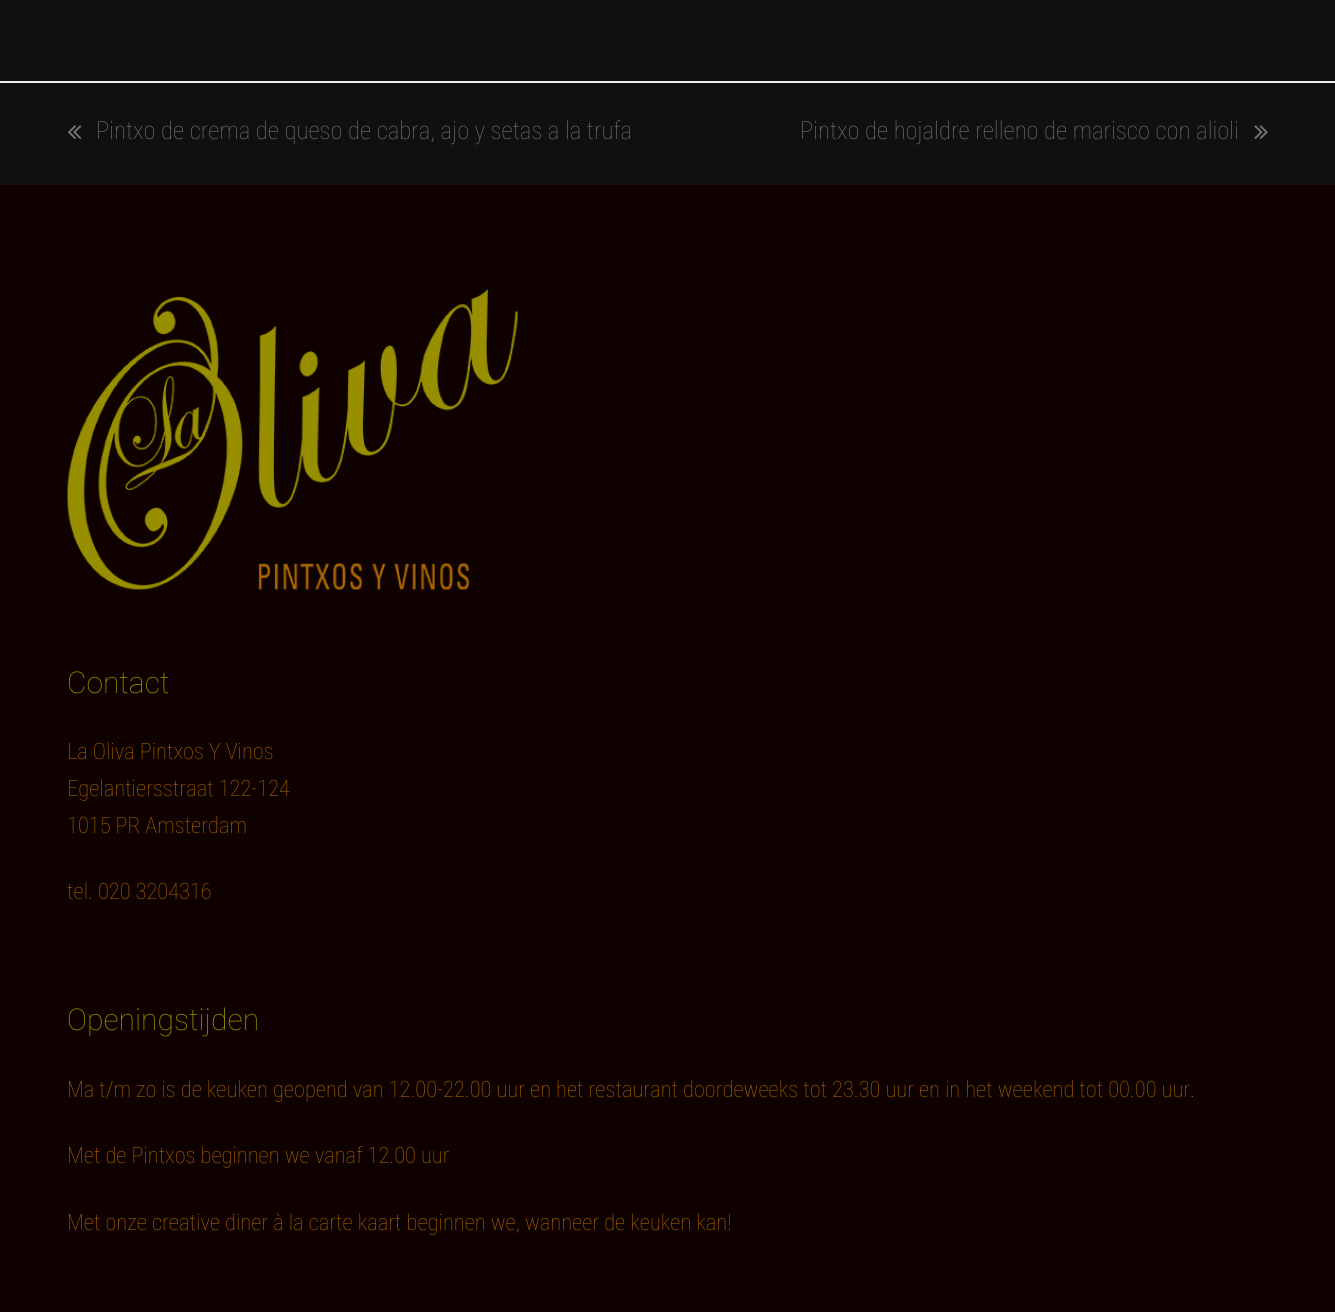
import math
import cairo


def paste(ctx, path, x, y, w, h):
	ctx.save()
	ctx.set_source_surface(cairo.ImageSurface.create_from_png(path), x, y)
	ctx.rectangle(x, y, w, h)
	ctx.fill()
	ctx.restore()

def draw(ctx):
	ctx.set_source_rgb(0.067, 0.063, 0.059)
	ctx.paint()
	ctx.set_source_rgb(0.933, 0.933, 0.933)
	ctx.rectangle(0, 81, 1335, 2)
	ctx.fill()
	paste(ctx, 'media/1.png', 68, 125, 14, 14)
	ctx.select_font_face('Roboto Condensed Thin')
	ctx.set_font_size(24.75)
	ctx.set_source_rgb(0.459, 0.459, 0.459)
	ctx.move_to(96, 139)
	ctx.show_text('Pintxo de crema de queso de cabra, ajo y setas a la trufa')
	ctx.move_to(800, 139)
	ctx.show_text('Pintxo de hojaldre relleno de marisco con alioli')
	paste(ctx, 'media/2.png', 1254, 125, 14, 14)
	ctx.set_source_rgb(0.059, 0.004, 0)
	ctx.rectangle(0, 185, 1335, 1127)
	ctx.fill()
	paste(ctx, 'media/3.png', 67, 289, 451, 301)
	ctx.select_font_face('Roboto Thin')
	ctx.set_font_size(30)
	ctx.set_source_rgb(0.596, 0.565, 0)
	ctx.move_to(67, 693)
	ctx.show_text('Contact')
	ctx.select_font_face('Roboto Condensed Thin')
	ctx.set_font_size(22.5)
	ctx.set_source_rgb(0.682, 0.408, 0.02)
	for x, y, s in [
		(67, 759, 'La Oliva Pintxos Y Vinos'),
		(67, 796, 'Egelantiersstraat 122-124'),
		(67, 833, '1015 PR Amsterdam'),
		(67, 899, 'tel. 020 3204316'),
	]:
		ctx.move_to(x, y)
		ctx.show_text(s)
	ctx.select_font_face('Roboto Thin')
	ctx.set_font_size(30)
	ctx.set_source_rgb(0.596, 0.565, 0)
	ctx.move_to(67, 1030)
	ctx.show_text('Openingstijden')
	ctx.select_font_face('Roboto Condensed Thin')
	ctx.set_font_size(22.5)
	ctx.set_source_rgb(0.682, 0.408, 0.02)
	for x, y, s in [
		(67, 1097, 'Ma t/m zo is de keuken geopend van 12.00-22.00 uur en het restaurant doordeweeks tot 23.30 uur en in het weekend tot 00.00 uur.'),
		(67, 1163, 'Met de Pintxos beginnen we vanaf 12.00 uur'),
		(67, 1230, 'Met onze creative diner à la carte kaart beginnen we, wanneer de keuken kan!'),
	]:
		ctx.move_to(x, y)
		ctx.show_text(s)


surface = cairo.ImageSurface(cairo.FORMAT_RGB24, 1335, 1312)
ctx = cairo.Context(surface)
options = cairo.FontOptions()
options.set_hint_metrics(cairo.HINT_METRICS_OFF)
options.set_hint_style(cairo.HINT_STYLE_NONE)
ctx.set_font_options(options)
ctx.set_miter_limit(4)
draw(ctx)
surface.write_to_png('image.png')
